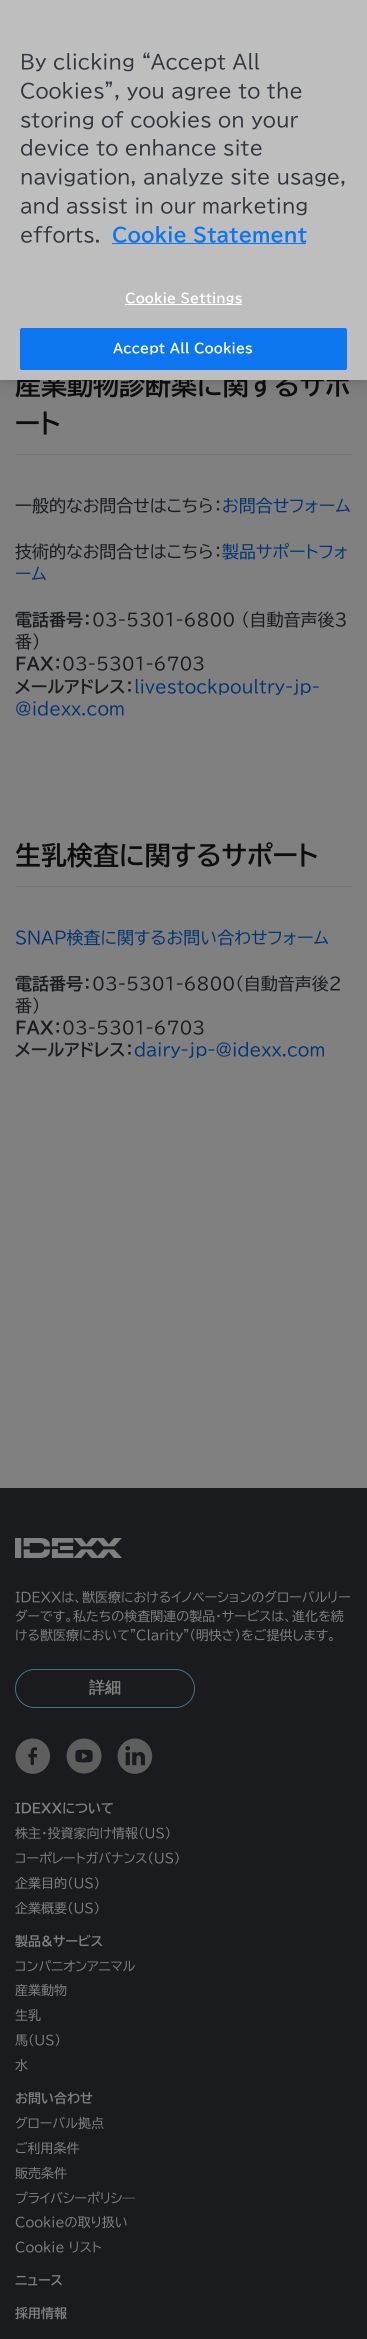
import math
import cairo


def write_spaced(ctx, x, y, s, letter, word):
	ctx.move_to(x, y)
	for ch in s:
		ctx.show_text(ch)
		ctx.rel_move_to(letter + word * (ch == ' '), 0)

def round_path(ctx, x, y, w, h, r):
	ctx.new_sub_path()
	for i, (u, v) in enumerate([(x + w - r, y + h - r), (x + r, y + h - r), (x + r, y + r), (x + w - r, y + r)]):
		ctx.arc(u, v, r, i * math.pi / 2, (i + 1) * math.pi / 2)
	ctx.close_path()

def blur_box(ctx, x, y, w, h, r, blur, alpha):
	ctx.push_group_with_content(cairo.CONTENT_ALPHA)
	ctx.set_operator(cairo.OPERATOR_SOURCE)
	for i in range(15, -16, -2):
		e = blur * i / 6
		if min(w, h) + 2 * e > 0:
			ctx.set_source_rgba(0, 0, 0, alpha * math.erfc((i - 1) / 8.5) / 2)
			round_path(ctx, x - e, y - e, w + 2 * e, h + 2 * e, max(0, min(r + e + blur * .6, min(w, h) / 2 + e)))
			ctx.fill()
	ctx.mask(ctx.pop_group())

def paste(ctx, path, x, y, w, h):
	ctx.save()
	ctx.set_source_surface(cairo.ImageSurface.create_from_png(path), x, y)
	ctx.rectangle(x, y, w, h)
	ctx.fill()
	ctx.restore()

def draw(ctx):
	ctx.set_source_rgb(0.502, 0.502, 0.502)
	ctx.paint()
	ctx.set_source_rgb(0, 0, 0)
	blur_box(ctx, 0, 0, 367, 380, 0, 9, 0.2)
	ctx.select_font_face('BIZ UDPGothic', cairo.FONT_SLANT_NORMAL, cairo.FONT_WEIGHT_BOLD)
	ctx.set_font_size(26)
	ctx.set_source_rgb(0.051, 0.051, 0.051)
	ctx.move_to(15, 395)
	ctx.show_text('産業動物診断薬に関するサポ')
	ctx.set_source_rgb(0.745, 0.745, 0.745)
	ctx.rectangle(0, 0, 367, 380)
	ctx.fill()
	ctx.select_font_face('BIZ UDPGothic')
	ctx.set_font_size(19.25)
	ctx.set_source_rgb(0.192, 0.208, 0.239)
	for x, y, s in [
		(20, 69, 'By clicking “Accept All'),
		(20, 98, 'Cookies”, you agree to the'),
		(20, 127, 'storing of cookies on your'),
		(20, 155, 'device to enhance site'),
		(20, 184, 'navigation, analyze site usage,'),
		(20, 213, 'and assist in our marketing'),
		(20, 242, 'efforts.'),
	]:
		ctx.move_to(x, y)
		ctx.show_text(s)
	ctx.select_font_face('BIZ UDPGothic', cairo.FONT_SLANT_NORMAL, cairo.FONT_WEIGHT_BOLD)
	ctx.set_source_rgb(0.043, 0.463, 0.941)
	ctx.move_to(112, 242)
	ctx.show_text('Cookie Statement')
	ctx.rectangle(112, 243, 194, 1)
	ctx.fill()
	ctx.set_source_rgb(1, 1, 1)
	ctx.rectangle(125, 304, 117, 1)
	ctx.fill()
	ctx.set_font_size(13)
	write_spaced(ctx, 125, 303, 'Cookie Settings', 0.1, 0)
	ctx.set_source_rgb(0.043, 0.463, 0.941)
	round_path(ctx, 20.5, 328.5, 326, 41, 1.5)
	ctx.fill_preserve()
	ctx.set_line_width(1)
	ctx.stroke()
	ctx.set_source_rgb(1, 1, 1)
	write_spaced(ctx, 113, 353, 'Accept All Cookies', 0.1, 0)
	ctx.set_font_size(26)
	ctx.set_source_rgb(0.051, 0.051, 0.051)
	ctx.move_to(15, 433)
	ctx.show_text('ート')
	ctx.set_source_rgb(0.471, 0.471, 0.471)
	ctx.rectangle(15, 454, 337, 1)
	ctx.fill()
	ctx.select_font_face('BIZ UDPGothic')
	ctx.set_font_size(17)
	ctx.set_source_rgb(0.098, 0.106, 0.122)
	ctx.move_to(15, 512)
	ctx.show_text('一般的なお問合せはこちら：')
	ctx.set_source_rgb(0.008, 0.208, 0.439)
	ctx.move_to(222, 512)
	ctx.show_text('お問合せフォーム')
	ctx.set_source_rgb(0.098, 0.106, 0.122)
	ctx.move_to(15, 558)
	ctx.show_text('技術的なお問合せはこちら：')
	ctx.set_source_rgb(0.008, 0.208, 0.439)
	ctx.move_to(222, 558)
	ctx.show_text('製品サポートフォ')
	ctx.move_to(15, 580)
	ctx.show_text('ーム')
	ctx.select_font_face('BIZ UDPGothic', cairo.FONT_SLANT_NORMAL, cairo.FONT_WEIGHT_BOLD)
	ctx.set_source_rgb(0.098, 0.106, 0.122)
	ctx.move_to(15, 626)
	ctx.show_text('電話番号：')
	ctx.select_font_face('BIZ UDPGothic')
	ctx.move_to(92, 626)
	ctx.show_text('03-5301-6800 （自動音声後3')
	ctx.move_to(15, 648)
	ctx.show_text('番）')
	ctx.select_font_face('BIZ UDPGothic', cairo.FONT_SLANT_NORMAL, cairo.FONT_WEIGHT_BOLD)
	ctx.move_to(15, 670)
	ctx.show_text('FAX：')
	ctx.select_font_face('BIZ UDPGothic')
	ctx.move_to(62, 670)
	ctx.show_text('03-5301-6703')
	ctx.select_font_face('BIZ UDPGothic', cairo.FONT_SLANT_NORMAL, cairo.FONT_WEIGHT_BOLD)
	ctx.move_to(15, 693)
	ctx.show_text('メールアドレス：')
	ctx.select_font_face('BIZ UDPGothic')
	ctx.set_source_rgb(0.008, 0.208, 0.439)
	ctx.move_to(134, 693)
	ctx.show_text('livestockpoultry-jp-')
	ctx.move_to(15, 715)
	ctx.show_text('@idexx.com')
	ctx.select_font_face('BIZ UDPGothic', cairo.FONT_SLANT_NORMAL, cairo.FONT_WEIGHT_BOLD)
	ctx.set_font_size(26)
	ctx.set_source_rgb(0.051, 0.051, 0.051)
	ctx.move_to(15, 865)
	ctx.show_text('生乳検査に関するサポート')
	ctx.set_source_rgb(0.471, 0.471, 0.471)
	ctx.rectangle(15, 886, 337, 1)
	ctx.fill()
	ctx.select_font_face('BIZ UDPGothic')
	ctx.set_font_size(17)
	ctx.set_source_rgb(0.008, 0.208, 0.439)
	ctx.move_to(15, 944)
	ctx.show_text('SNAP検査に関するお問い合わせフォーム')
	ctx.select_font_face('BIZ UDPGothic', cairo.FONT_SLANT_NORMAL, cairo.FONT_WEIGHT_BOLD)
	ctx.set_source_rgb(0.098, 0.106, 0.122)
	ctx.move_to(15, 990)
	ctx.show_text('電話番号：')
	ctx.select_font_face('BIZ UDPGothic')
	ctx.move_to(92, 990)
	ctx.show_text('03-5301-6800（自動音声後2')
	ctx.move_to(15, 1012)
	ctx.show_text('番）')
	ctx.select_font_face('BIZ UDPGothic', cairo.FONT_SLANT_NORMAL, cairo.FONT_WEIGHT_BOLD)
	ctx.move_to(15, 1034)
	ctx.show_text('FAX：')
	ctx.select_font_face('BIZ UDPGothic')
	ctx.move_to(62, 1034)
	ctx.show_text('03-5301-6703')
	ctx.select_font_face('BIZ UDPGothic', cairo.FONT_SLANT_NORMAL, cairo.FONT_WEIGHT_BOLD)
	ctx.move_to(15, 1056)
	ctx.show_text('メールアドレス：')
	ctx.select_font_face('BIZ UDPGothic')
	ctx.set_source_rgb(0.008, 0.208, 0.439)
	ctx.move_to(134, 1056)
	ctx.show_text('dairy-jp-@idexx.com')
	ctx.set_source_rgb(0.098, 0.106, 0.122)
	ctx.rectangle(0, 1488, 367, 851)
	ctx.fill()
	paste(ctx, 'media/1.png', 15, 1538, 107, 20)
	ctx.set_font_size(13)
	ctx.set_source_rgb(0.502, 0.502, 0.502)
	for x, y, s in [
		(15, 1602, 'IDEXXは、獣医療におけるイノベーションのグローバルリー'),
		(15, 1621, 'ダーです。私たちの検査関連の製品・サービスは、進化を続'),
		(15, 1640, 'ける獣医療において"Clarity"（明快さ）をご提供します。'),
	]:
		ctx.move_to(x, y)
		ctx.show_text(s)
	round_path(ctx, 15.5, 1669.5, 179, 38, 19)
	ctx.set_source_rgb(0.306, 0.431, 0.502)
	ctx.stroke()
	ctx.select_font_face('WenQuanYi Zen Hei', cairo.FONT_SLANT_NORMAL, cairo.FONT_WEIGHT_BOLD)
	ctx.set_font_size(16)
	ctx.set_source_rgb(0.502, 0.502, 0.502)
	ctx.move_to(89, 1693)
	ctx.show_text('詳細')
	paste(ctx, 'media/2.png', 15, 1738, 36, 36)
	paste(ctx, 'media/3.png', 66, 1738, 36, 36)
	paste(ctx, 'media/4.png', 117, 1738, 36, 36)
	ctx.select_font_face('BIZ UDPGothic', cairo.FONT_SLANT_NORMAL, cairo.FONT_WEIGHT_BOLD)
	ctx.set_font_size(13)
	ctx.move_to(15, 1813)
	ctx.show_text('IDEXXについて')
	ctx.select_font_face('BIZ UDPGothic')
	for x, y, s in [
		(15, 1838, '株主・投資家向け情報（US）'),
		(15, 1863, 'コーポレートガバナンス（US）'),
		(15, 1888, '企業目的（US）'),
		(15, 1913, '企業概要（US）'),
	]:
		ctx.move_to(x, y)
		ctx.show_text(s)
	ctx.select_font_face('BIZ UDPGothic', cairo.FONT_SLANT_NORMAL, cairo.FONT_WEIGHT_BOLD)
	ctx.move_to(15, 1946)
	ctx.show_text('製品&サービス')
	ctx.select_font_face('BIZ UDPGothic')
	for x, y, s in [
		(15, 1971, 'コンパニオンアニマル'),
		(15, 1995, '産業動物'),
		(15, 2020, '生乳'),
		(15, 2045, '馬(US)'),
		(15, 2070, '水'),
	]:
		ctx.move_to(x, y)
		ctx.show_text(s)
	ctx.select_font_face('BIZ UDPGothic', cairo.FONT_SLANT_NORMAL, cairo.FONT_WEIGHT_BOLD)
	ctx.move_to(15, 2103)
	ctx.show_text('お問い合わせ')
	ctx.select_font_face('BIZ UDPGothic')
	for x, y, s in [
		(15, 2128, 'グローバル拠点'),
		(15, 2153, 'ご利用条件'),
		(15, 2178, '販売条件'),
		(15, 2203, 'プライバシーポリシ―'),
		(15, 2227, 'Cookieの取り扱い'),
		(15, 2252, 'Cookie リスト'),
	]:
		ctx.move_to(x, y)
		ctx.show_text(s)
	ctx.select_font_face('BIZ UDPGothic', cairo.FONT_SLANT_NORMAL, cairo.FONT_WEIGHT_BOLD)
	ctx.move_to(15, 2285)
	ctx.show_text('ニュース')
	ctx.move_to(15, 2318)
	ctx.show_text('採用情報')


surface = cairo.ImageSurface(cairo.FORMAT_RGB24, 367, 2339)
ctx = cairo.Context(surface)
options = cairo.FontOptions()
options.set_hint_metrics(cairo.HINT_METRICS_OFF)
options.set_hint_style(cairo.HINT_STYLE_NONE)
ctx.set_font_options(options)
ctx.set_miter_limit(4)
draw(ctx)
surface.write_to_png('image.png')
